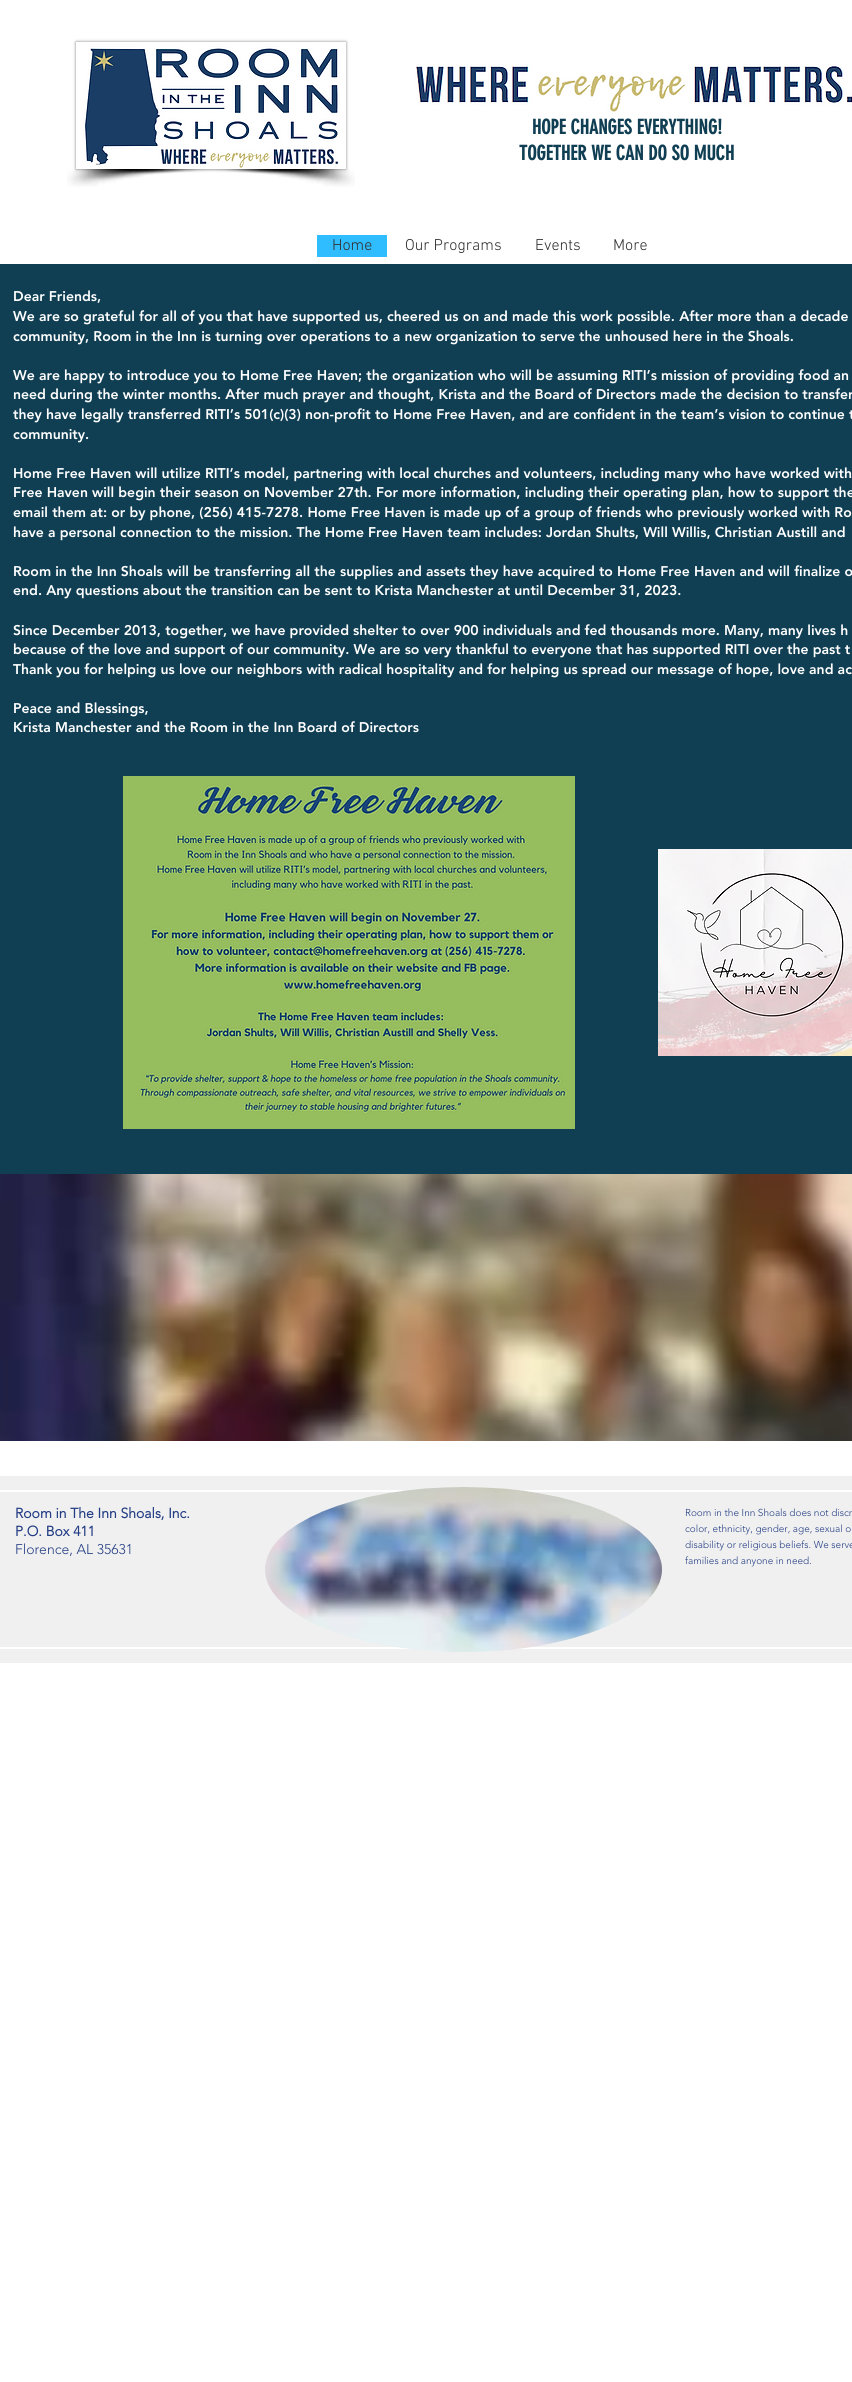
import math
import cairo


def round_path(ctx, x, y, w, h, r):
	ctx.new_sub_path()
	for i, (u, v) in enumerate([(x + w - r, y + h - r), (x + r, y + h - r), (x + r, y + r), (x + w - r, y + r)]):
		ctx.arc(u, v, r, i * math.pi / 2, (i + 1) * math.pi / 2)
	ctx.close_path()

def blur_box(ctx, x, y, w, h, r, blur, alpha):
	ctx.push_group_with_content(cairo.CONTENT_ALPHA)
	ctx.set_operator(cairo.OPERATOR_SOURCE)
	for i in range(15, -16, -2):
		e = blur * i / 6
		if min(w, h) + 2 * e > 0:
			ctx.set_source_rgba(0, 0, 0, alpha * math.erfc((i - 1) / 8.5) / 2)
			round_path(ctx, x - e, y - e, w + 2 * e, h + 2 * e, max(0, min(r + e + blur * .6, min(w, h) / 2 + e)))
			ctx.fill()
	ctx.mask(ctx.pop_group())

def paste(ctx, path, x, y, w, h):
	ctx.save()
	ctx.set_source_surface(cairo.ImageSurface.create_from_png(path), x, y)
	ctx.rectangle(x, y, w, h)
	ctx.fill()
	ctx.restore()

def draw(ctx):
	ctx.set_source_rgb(1, 1, 1)
	ctx.paint()
	ctx.set_source_rgb(0, 0, 0)
	blur_box(ctx, 76, 42, 270, 127, 0, 1.5, 0.5)
	paste(ctx, 'media/1.png', 76, 42, 270, 127)
	paste(ctx, 'media/2.png', 67, 169, 154, 18)
	paste(ctx, 'media/3.png', 201, 169, 154, 18)
	paste(ctx, 'media/4.png', 415, 64, 437, 48)
	ctx.select_font_face('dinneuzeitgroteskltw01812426', cairo.FONT_SLANT_NORMAL, cairo.FONT_WEIGHT_BOLD)
	ctx.set_font_size(20)
	ctx.set_source_rgb(0.063, 0.247, 0.329)
	ctx.move_to(532, 134)
	ctx.show_text('HOPE CHANGES EVERYTHING!')
	ctx.move_to(519, 160)
	ctx.show_text('TOGETHER WE CAN DO SO MUCH')
	ctx.set_source_rgb(0.188, 0.741, 1)
	ctx.rectangle(317, 235, 70, 22)
	ctx.fill()
	ctx.select_font_face('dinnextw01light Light')
	ctx.set_font_size(16)
	ctx.set_source_rgb(0.184, 0.18, 0.18)
	for x, y, s in [
		(332, 250, 'Home'),
		(405, 250, 'Our Programs'),
		(535, 250, 'Events'),
		(613, 250, 'More'),
	]:
		ctx.move_to(x, y)
		ctx.show_text(s)
	ctx.set_source_rgb(0.063, 0.247, 0.329)
	ctx.rectangle(0, 264, 852, 910)
	ctx.fill()
	ctx.select_font_face('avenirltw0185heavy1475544 Black')
	ctx.set_font_size(14)
	ctx.set_source_rgb(1, 1, 1)
	for x, y, s in [
		(13, 301, 'Dear Friends,'),
		(13, 321, 'We are so grateful for all of you that have supported us, cheered us on and made this work possible. After more than a decade'),
		(13, 341, 'community, Room in the Inn is turning over operations to a new organization to serve the unhoused here in the Shoals.'),
		(13, 380, 'We are happy to introduce you to Home Free Haven; the organization who will be assuming RITI’s mission of providing food an'),
		(13, 399, 'need during the winter months. After much prayer and thought, Krista and the Board of Directors made the decision to transfer'),
		(13, 419, 'they have legally transferred RITI’s 501(c)(3) non-profit to Home Free Haven, and are confident in the team’s vision to continue t'),
		(13, 439, 'community.'),
		(13, 478, 'Home Free Haven will utilize RITI’s model, partnering with local churches and volunteers, including many who have worked with'),
		(13, 497, 'Free Haven will begin their season on November 27th. For more information, including their operating plan, how to support the'),
		(13, 517, 'email them at: or by phone, (256) 415-7278. Home Free Haven is made up of a group of friends who previously worked with Ro'),
		(13, 537, 'have a personal connection to the mission. The Home Free Haven team includes: Jordan Shults, Will Willis, Christian Austill and'),
		(13, 576, 'Room in the Inn Shoals will be transferring all the supplies and assets they have acquired to Home Free Haven and will finalize o'),
		(13, 595, 'end. Any questions about the transition can be sent to Krista Manchester at until December 31, 2023.'),
		(13, 635, 'Since December 2013, together, we have provided shelter to over 900 individuals and fed thousands more. Many, many lives h'),
		(13, 654, 'because of the love and support of our community. We are so very thankful to everyone that has supported RITI over the past t'),
		(13, 674, 'Thank you for helping us love our neighbors with radical hospitality and for helping us spread our message of hope, love and ac'),
		(13, 713, 'Peace and Blessings,'),
		(13, 732, 'Krista Manchester and the Room in the Inn Board of Directors'),
	]:
		ctx.move_to(x, y)
		ctx.show_text(s)
	paste(ctx, 'media/5.png', 123, 776, 452, 353)
	paste(ctx, 'media/6.png', 658, 849, 194, 207)
	paste(ctx, 'media/7.png', 0, 1174, 852, 267)
	ctx.set_source_rgb(0.941, 0.941, 0.941)
	ctx.rectangle(0, 1476, 852, 187)
	ctx.fill()
	ctx.set_source_rgb(1, 1, 1)
	ctx.rectangle(0, 1490, 852, 2)
	ctx.rectangle(0, 1647, 852, 2)
	ctx.fill()
	ctx.select_font_face('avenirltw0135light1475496', cairo.FONT_SLANT_NORMAL, cairo.FONT_WEIGHT_BOLD)
	ctx.set_source_rgb(0.141, 0.243, 0.522)
	ctx.move_to(15, 1518)
	ctx.show_text('Room in The Inn Shoals, Inc.')
	ctx.move_to(15, 1536)
	ctx.show_text('P.O. Box 411')
	ctx.select_font_face('avenirltw0135light1475496 Light')
	ctx.move_to(15, 1554)
	ctx.show_text('Florence, AL 35631')
	paste(ctx, 'media/8.png', 265, 1487, 397, 165)
	ctx.set_font_size(10)
	for x, y, s in [
		(685, 1516, 'Room in the Inn Shoals does not discr'),
		(685, 1532, 'color, ethnicity, gender, age, sexual o'),
		(685, 1548, 'disability or religious beliefs. We serve'),
		(685, 1564, 'families and anyone in need.'),
	]:
		ctx.move_to(x, y)
		ctx.show_text(s)


surface = cairo.ImageSurface(cairo.FORMAT_RGB24, 852, 2382)
ctx = cairo.Context(surface)
options = cairo.FontOptions()
options.set_hint_metrics(cairo.HINT_METRICS_OFF)
options.set_hint_style(cairo.HINT_STYLE_NONE)
ctx.set_font_options(options)
ctx.set_miter_limit(4)
draw(ctx)
surface.write_to_png('image.png')
